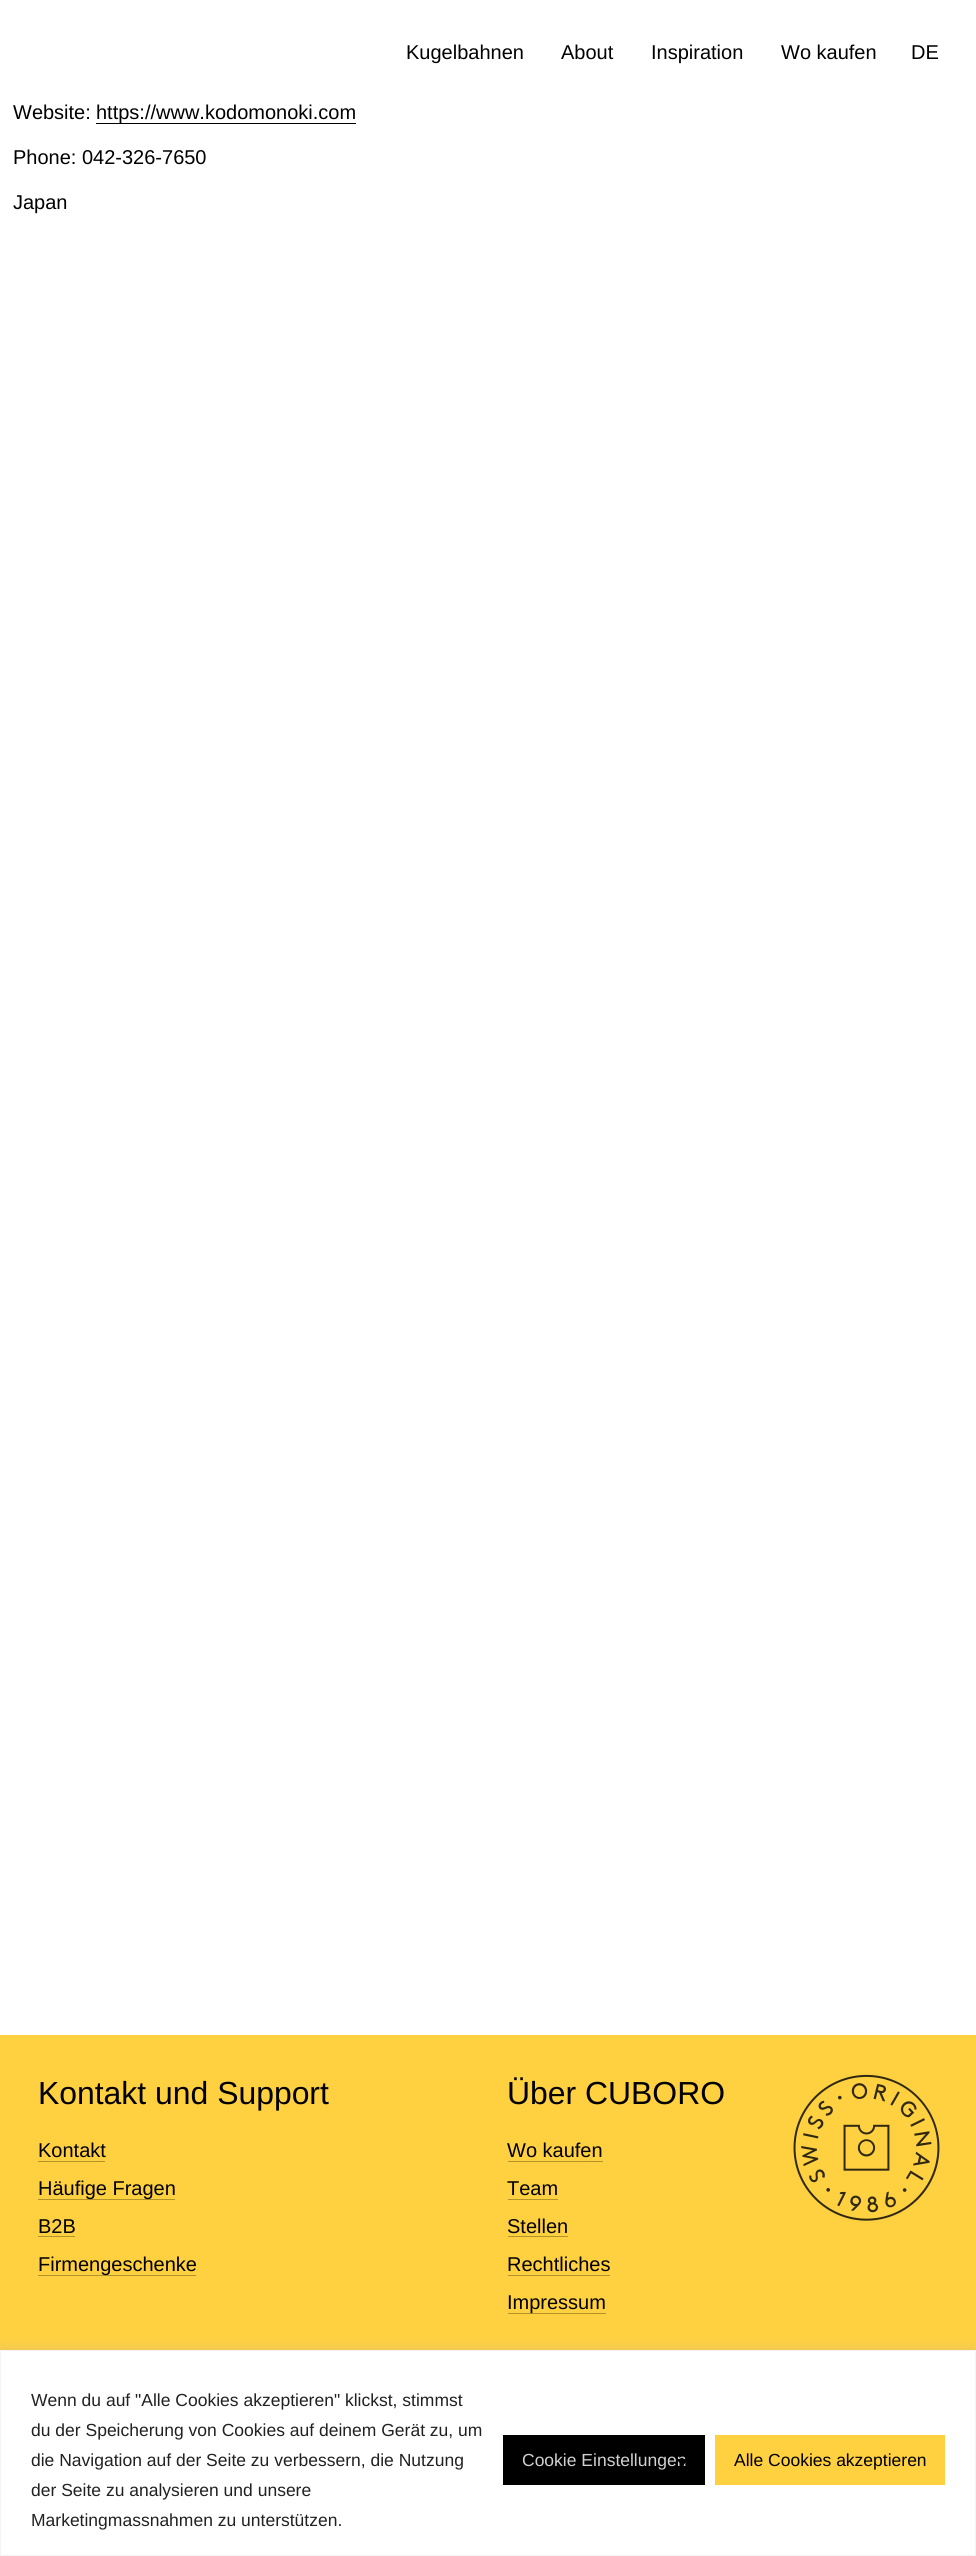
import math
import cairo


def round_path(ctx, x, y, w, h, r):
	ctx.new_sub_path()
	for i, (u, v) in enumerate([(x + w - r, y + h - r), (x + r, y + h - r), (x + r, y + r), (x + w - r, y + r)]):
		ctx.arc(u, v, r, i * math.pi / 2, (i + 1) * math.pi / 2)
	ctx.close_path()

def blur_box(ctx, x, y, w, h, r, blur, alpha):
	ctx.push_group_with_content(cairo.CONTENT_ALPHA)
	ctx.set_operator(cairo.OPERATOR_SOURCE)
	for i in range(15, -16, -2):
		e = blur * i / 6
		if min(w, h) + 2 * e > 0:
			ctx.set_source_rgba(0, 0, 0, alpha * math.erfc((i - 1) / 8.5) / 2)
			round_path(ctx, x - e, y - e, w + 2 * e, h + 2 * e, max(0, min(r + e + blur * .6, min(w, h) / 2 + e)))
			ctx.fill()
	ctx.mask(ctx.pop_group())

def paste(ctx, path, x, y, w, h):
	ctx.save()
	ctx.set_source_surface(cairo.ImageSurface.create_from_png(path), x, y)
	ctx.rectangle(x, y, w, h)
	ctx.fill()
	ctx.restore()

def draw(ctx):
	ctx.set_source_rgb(1, 1, 1)
	ctx.paint()
	ctx.select_font_face('Liberation Sans')
	ctx.set_font_size(20)
	ctx.set_source_rgb(0, 0, 0)
	for x, y, s in [
		(406, 59, 'Kugelbahnen'),
		(561, 59, 'About'),
		(651, 59, 'Inspiration'),
		(781, 59, 'Wo kaufen'),
		(911, 59, 'DE'),
		(13, 119, 'Website:'),
	]:
		ctx.move_to(x, y)
		ctx.show_text(s)
	ctx.rectangle(96, 123, 260, 1)
	ctx.fill()
	for x, y, s in [
		(96, 119, 'https://www.kodomonoki.com'),
		(13, 164, 'Phone: 042-326-7650'),
		(13, 209, 'Japan'),
	]:
		ctx.move_to(x, y)
		ctx.show_text(s)
	ctx.set_source_rgb(1, 0.816, 0.251)
	ctx.rectangle(0, 2035, 976, 315)
	ctx.fill()
	ctx.set_font_size(31.9)
	ctx.set_source_rgb(0, 0, 0)
	ctx.move_to(38, 2104)
	ctx.show_text('Kontakt und Support')
	ctx.set_font_size(20)
	ctx.move_to(38, 2157)
	ctx.show_text('Kontakt')
	ctx.set_source_rgb(0.694, 0.576, 0.165)
	ctx.rectangle(38, 2161, 67, 1)
	ctx.fill()
	ctx.rectangle(38, 2199, 137, 1)
	ctx.fill()
	ctx.set_source_rgb(0, 0, 0)
	ctx.move_to(38, 2195)
	ctx.show_text('Häufige Fragen')
	ctx.move_to(38, 2233)
	ctx.show_text('B2B')
	ctx.set_source_rgb(0.694, 0.576, 0.165)
	ctx.rectangle(38, 2236, 37, 1)
	ctx.fill()
	ctx.rectangle(38, 2275, 158, 1)
	ctx.fill()
	ctx.set_source_rgb(0, 0, 0)
	ctx.move_to(38, 2271)
	ctx.show_text('Firmengeschenke')
	ctx.set_font_size(31.9)
	ctx.move_to(507, 2104)
	ctx.show_text('Über CUBORO')
	paste(ctx, 'media/1.png', 793, 2074, 147, 147)
	ctx.set_font_size(20)
	ctx.move_to(507, 2157)
	ctx.show_text('Wo kaufen')
	ctx.set_source_rgb(0.694, 0.576, 0.165)
	ctx.rectangle(508, 2161, 95, 1)
	ctx.fill()
	ctx.set_source_rgb(0, 0, 0)
	ctx.move_to(507, 2195)
	ctx.show_text('Team')
	ctx.set_source_rgb(0.694, 0.576, 0.165)
	ctx.rectangle(508, 2199, 50, 1)
	ctx.fill()
	ctx.set_source_rgb(0, 0, 0)
	ctx.move_to(507, 2233)
	ctx.show_text('Stellen')
	ctx.set_source_rgb(0.694, 0.576, 0.165)
	ctx.rectangle(508, 2236, 60, 1)
	ctx.fill()
	ctx.set_source_rgb(0, 0, 0)
	ctx.move_to(507, 2271)
	ctx.show_text('Rechtliches')
	ctx.set_source_rgb(0.694, 0.576, 0.165)
	ctx.rectangle(508, 2275, 102, 1)
	ctx.fill()
	ctx.rectangle(508, 2313, 98, 1)
	ctx.fill()
	ctx.set_source_rgb(0, 0, 0)
	ctx.move_to(507, 2309)
	ctx.show_text('Impressum')
	ctx.set_source_rgb(0.675, 0.671, 0.671)
	blur_box(ctx, 0, 2349, 976, 206, 0, 6, 0.3)
	ctx.set_source_rgb(1, 1, 1)
	ctx.rectangle(0.5, 2350.5, 975, 205)
	ctx.fill_preserve()
	ctx.set_source_rgb(0.957, 0.957, 0.957)
	ctx.set_line_width(1)
	ctx.stroke()
	ctx.set_font_size(17.5)
	ctx.set_source_rgb(0.129, 0.129, 0.129)
	for x, y, s in [
		(31, 2406, 'Wenn du auf "Alle Cookies akzeptieren" klickst, stimmst'),
		(31, 2436, 'du der Speicherung von Cookies auf deinem Gerät zu, um'),
		(31, 2466, 'die Navigation auf der Seite zu verbessern, die Nutzung'),
		(31, 2496, 'der Seite zu analysieren und unsere'),
		(31, 2526, 'Marketingmassnahmen zu unterstützen.'),
	]:
		ctx.move_to(x, y)
		ctx.show_text(s)
	ctx.set_source_rgb(0, 0, 0)
	ctx.rectangle(503, 2435, 202, 50)
	ctx.fill()
	ctx.set_source_rgb(0.82, 0.82, 0.82)
	ctx.move_to(522, 2466)
	ctx.show_text('Cookie Einstellungen')
	ctx.set_source_rgb(0, 0, 0)
	ctx.new_path()
	ctx.move_to(676, 2459)
	ctx.line_to(689, 2459)
	ctx.line_to(682.5, 2466)
	ctx.close_path()
	ctx.fill()
	ctx.set_source_rgb(1, 0.816, 0.247)
	ctx.rectangle(715, 2435, 230, 50)
	ctx.fill()
	ctx.set_source_rgb(0, 0, 0)
	ctx.move_to(734, 2466)
	ctx.show_text('Alle Cookies akzeptieren')


surface = cairo.ImageSurface(cairo.FORMAT_RGB24, 976, 2556)
ctx = cairo.Context(surface)
options = cairo.FontOptions()
options.set_hint_metrics(cairo.HINT_METRICS_OFF)
options.set_hint_style(cairo.HINT_STYLE_NONE)
ctx.set_font_options(options)
ctx.set_miter_limit(4)
draw(ctx)
surface.write_to_png('image.png')
